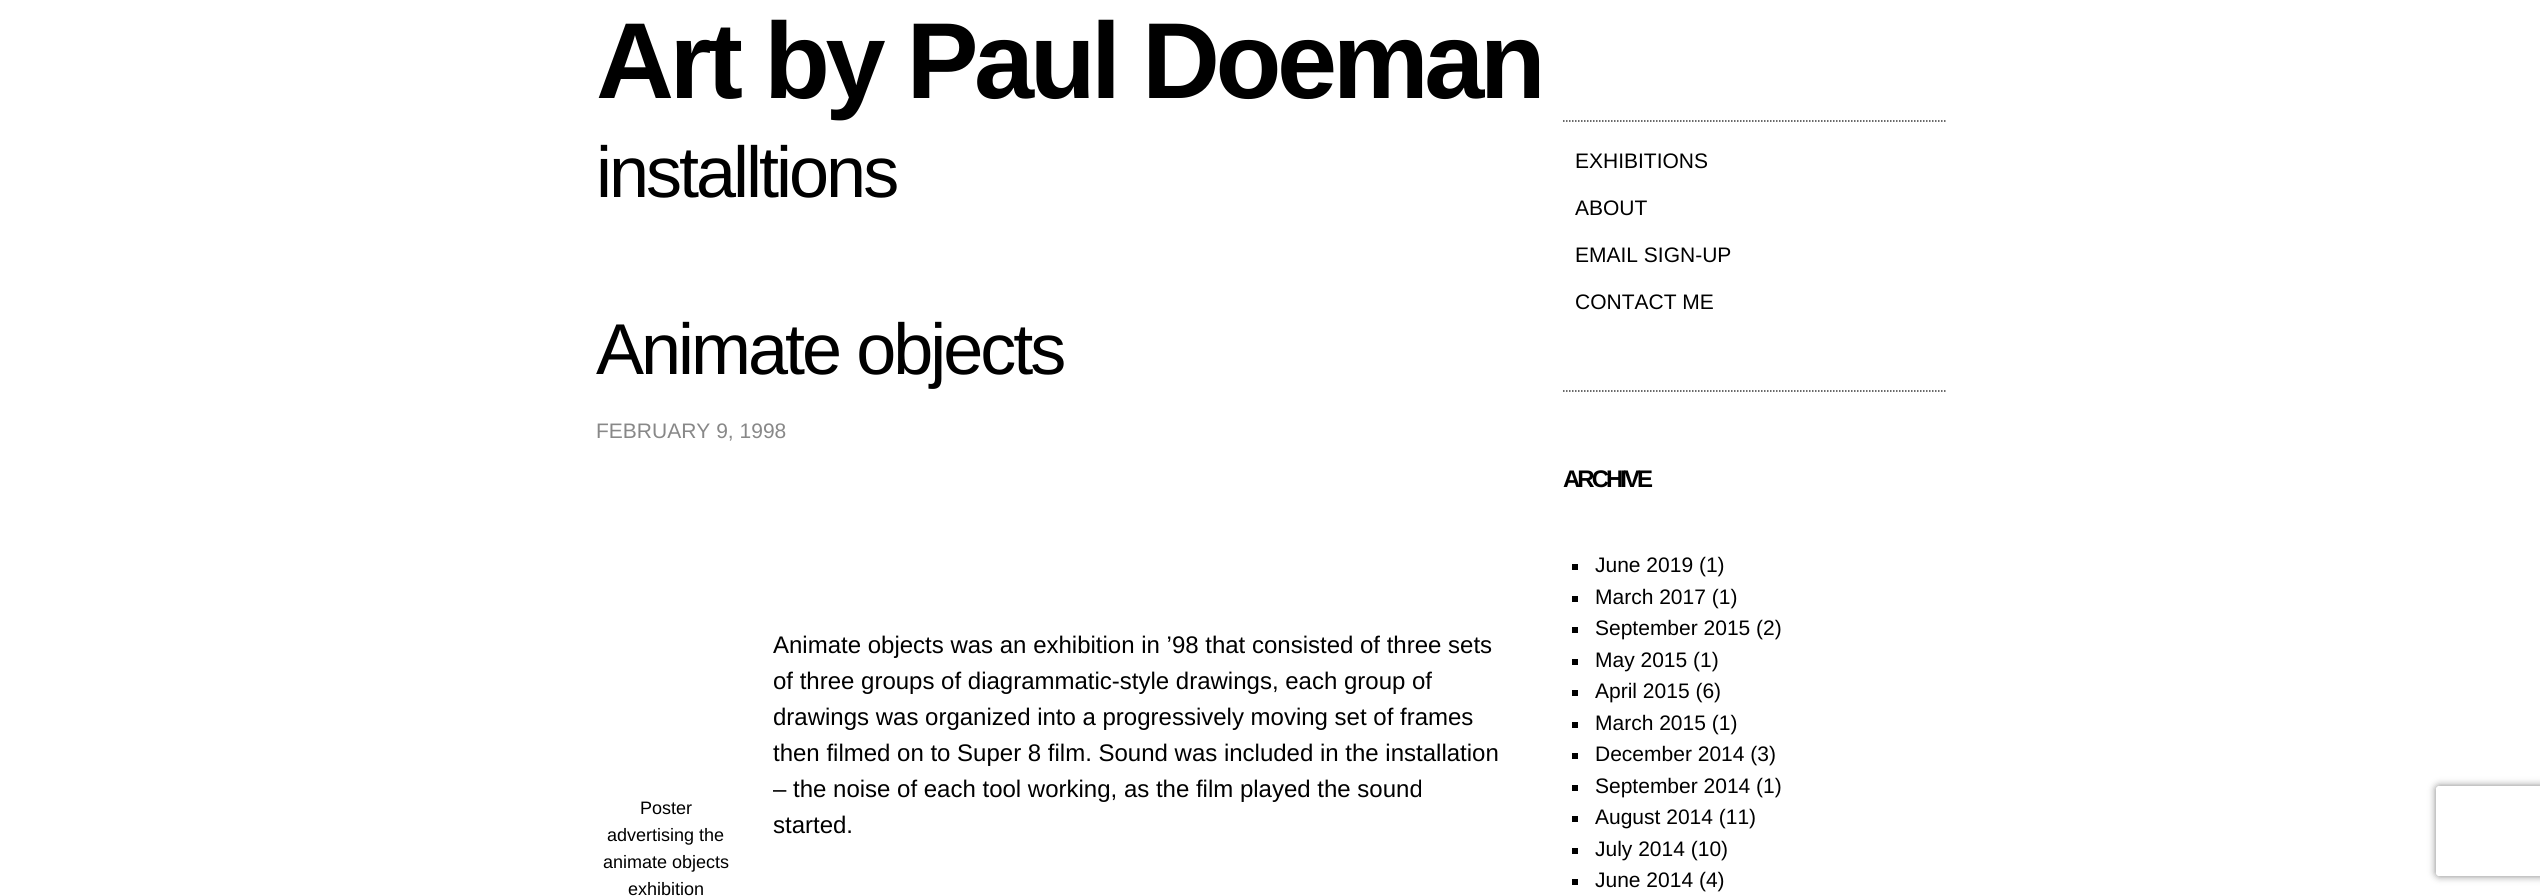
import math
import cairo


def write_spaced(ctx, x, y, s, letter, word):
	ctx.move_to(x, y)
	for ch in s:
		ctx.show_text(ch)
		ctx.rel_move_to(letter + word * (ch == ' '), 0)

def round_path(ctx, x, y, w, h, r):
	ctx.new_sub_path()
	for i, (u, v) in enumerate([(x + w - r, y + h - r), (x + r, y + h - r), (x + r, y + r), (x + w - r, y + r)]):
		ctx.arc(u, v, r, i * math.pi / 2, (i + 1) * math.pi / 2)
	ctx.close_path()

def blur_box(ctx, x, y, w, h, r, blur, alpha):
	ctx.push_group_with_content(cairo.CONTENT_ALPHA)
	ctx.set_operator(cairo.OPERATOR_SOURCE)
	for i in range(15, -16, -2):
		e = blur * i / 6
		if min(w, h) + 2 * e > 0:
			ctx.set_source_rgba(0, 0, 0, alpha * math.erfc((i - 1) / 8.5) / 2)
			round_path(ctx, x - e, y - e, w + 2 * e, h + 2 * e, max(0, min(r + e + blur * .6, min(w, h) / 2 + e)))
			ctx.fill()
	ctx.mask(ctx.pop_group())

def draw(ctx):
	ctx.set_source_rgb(1, 1, 1)
	ctx.paint()
	ctx.select_font_face('Liberation Sans', cairo.FONT_SLANT_NORMAL, cairo.FONT_WEIGHT_BOLD)
	ctx.set_font_size(108)
	ctx.set_source_rgb(0, 0, 0)
	write_spaced(ctx, 596, 98, 'Art by Paul Doeman', -4.5, 0)
	ctx.select_font_face('Liberation Sans')
	ctx.set_font_size(72)
	write_spaced(ctx, 596, 197, 'installtions', -3, 0)
	write_spaced(ctx, 596, 374, 'Animate objects', -3, 0)
	ctx.set_font_size(21)
	ctx.set_source_rgb(0.533, 0.533, 0.533)
	ctx.move_to(596, 438)
	ctx.show_text('FEBRUARY 9, 1998')
	ctx.set_font_size(24)
	ctx.set_source_rgb(0, 0, 0)
	for x, y, s in [
		(773, 653, 'Animate objects was an exhibition in ’98 that consisted of three sets'),
		(773, 689, 'of three groups of diagrammatic-style drawings, each group of'),
		(773, 725, 'drawings was organized into a progressively moving set of frames'),
		(773, 761, 'then filmed on to Super 8 film. Sound was included in the installation'),
		(773, 797, '– the noise of each tool working, as the film played the sound'),
		(773, 833, 'started.'),
	]:
		ctx.move_to(x, y)
		ctx.show_text(s)
	ctx.set_font_size(18)
	for x, y, s in [
		(640, 814, 'Poster'),
		(607, 841, 'advertising the'),
		(603, 868, 'animate objects'),
		(628, 895, 'exhibition'),
	]:
		ctx.move_to(x, y)
		ctx.show_text(s)
	ctx.new_path()
	ctx.move_to(1563, 121)
	ctx.line_to(1945.5, 121)
	ctx.set_source_rgb(0.224, 0.224, 0.224)
	ctx.set_line_width(1.5)
	ctx.set_dash([1.5, 1.5])
	ctx.stroke()
	ctx.set_font_size(21)
	ctx.set_source_rgb(0, 0, 0)
	for x, y, s in [
		(1575, 168, 'EXHIBITIONS'),
		(1575, 215, 'ABOUT'),
		(1575, 262, 'EMAIL SIGN-UP'),
		(1575, 309, 'CONTACT ME'),
	]:
		ctx.move_to(x, y)
		ctx.show_text(s)
	ctx.new_path()
	ctx.move_to(1563, 391)
	ctx.line_to(1945.5, 391)
	ctx.set_source_rgb(0.224, 0.224, 0.224)
	ctx.stroke()
	ctx.select_font_face('Liberation Sans', cairo.FONT_SLANT_NORMAL, cairo.FONT_WEIGHT_BOLD)
	ctx.set_font_size(24)
	ctx.set_source_rgb(0, 0, 0)
	write_spaced(ctx, 1563, 487, 'ARCHIVE', -3, 0)
	ctx.rectangle(1572, 564, 6, 6)
	ctx.fill()
	ctx.select_font_face('Liberation Sans')
	ctx.set_font_size(21)
	ctx.move_to(1595, 572)
	ctx.show_text('June 2019 (1)')
	ctx.rectangle(1572, 596, 6, 6)
	ctx.fill()
	ctx.move_to(1595, 604)
	ctx.show_text('March 2017 (1)')
	ctx.rectangle(1572, 627, 6, 6)
	ctx.fill()
	ctx.move_to(1595, 635)
	ctx.show_text('September 2015 (2)')
	ctx.rectangle(1572, 659, 6, 6)
	ctx.fill()
	ctx.move_to(1595, 667)
	ctx.show_text('May 2015 (1)')
	ctx.rectangle(1572, 690, 6, 6)
	ctx.fill()
	ctx.move_to(1595, 698)
	ctx.show_text('April 2015 (6)')
	ctx.rectangle(1572, 722, 6, 6)
	ctx.fill()
	ctx.move_to(1595, 730)
	ctx.show_text('March 2015 (1)')
	ctx.rectangle(1572, 753, 6, 6)
	ctx.fill()
	ctx.move_to(1595, 761)
	ctx.show_text('December 2014 (3)')
	ctx.rectangle(1572, 785, 6, 6)
	ctx.fill()
	ctx.move_to(1595, 793)
	ctx.show_text('September 2014 (1)')
	ctx.rectangle(1572, 816, 6, 6)
	ctx.fill()
	ctx.move_to(1595, 824)
	ctx.show_text('August 2014 (11)')
	ctx.rectangle(1572, 848, 6, 6)
	ctx.fill()
	ctx.move_to(1595, 856)
	ctx.show_text('July 2014 (10)')
	ctx.rectangle(1572, 879, 6, 6)
	ctx.fill()
	ctx.move_to(1595, 887)
	ctx.show_text('June 2014 (4)')
	ctx.save()
	ctx.set_fill_rule(cairo.FILL_RULE_EVEN_ODD)
	ctx.new_path()
	ctx.move_to(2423, 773)
	ctx.line_to(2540, 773)
	ctx.line_to(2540, 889)
	ctx.line_to(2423, 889)
	ctx.close_path()
	ctx.move_to(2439, 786)
	ctx.line_to(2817, 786)
	ctx.curve_to(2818.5, 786, 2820, 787.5, 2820, 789)
	ctx.line_to(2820, 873)
	ctx.curve_to(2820, 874.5, 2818.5, 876, 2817, 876)
	ctx.line_to(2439, 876)
	ctx.curve_to(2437.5, 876, 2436, 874.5, 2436, 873)
	ctx.line_to(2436, 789)
	ctx.curve_to(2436, 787.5, 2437.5, 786, 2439, 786)
	ctx.close_path()
	ctx.clip()
	ctx.set_source_rgb(0.502, 0.502, 0.502)
	blur_box(ctx, 2436, 786, 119, 90, 3, 4, 1)
	ctx.restore()


surface = cairo.ImageSurface(cairo.FORMAT_RGB24, 2540, 896)
ctx = cairo.Context(surface)
options = cairo.FontOptions()
options.set_hint_metrics(cairo.HINT_METRICS_OFF)
options.set_hint_style(cairo.HINT_STYLE_NONE)
ctx.set_font_options(options)
ctx.set_miter_limit(4)
draw(ctx)
surface.write_to_png('image.png')
